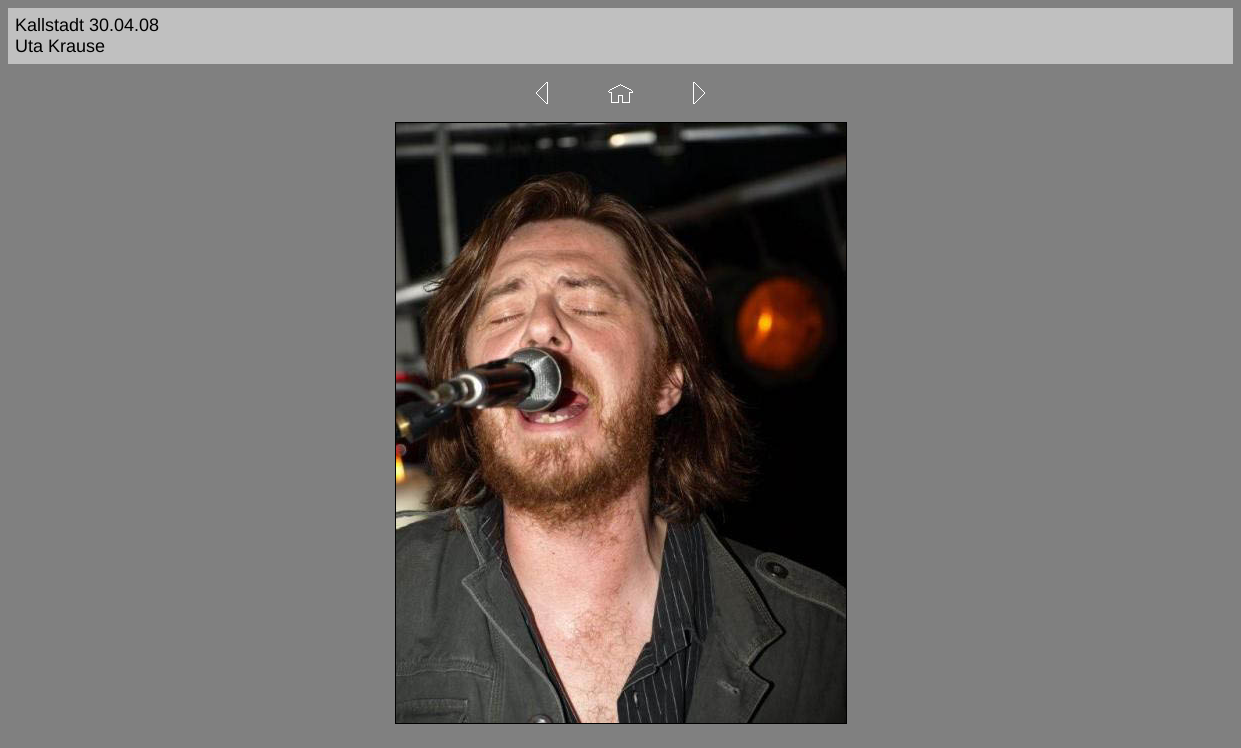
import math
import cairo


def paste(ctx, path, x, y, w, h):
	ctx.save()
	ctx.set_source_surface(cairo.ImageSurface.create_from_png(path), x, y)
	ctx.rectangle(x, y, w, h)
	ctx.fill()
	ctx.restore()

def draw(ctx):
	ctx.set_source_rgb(0.502, 0.502, 0.502)
	ctx.paint()
	ctx.set_source_rgb(0.753, 0.753, 0.753)
	ctx.rectangle(8, 8, 1225, 56)
	ctx.fill()
	ctx.select_font_face('Liberation Sans')
	ctx.set_font_size(18)
	ctx.set_source_rgb(0, 0, 0)
	ctx.move_to(15, 31)
	ctx.show_text('Kallstadt 30.04.08')
	ctx.move_to(15, 52)
	ctx.show_text('Uta Krause')
	paste(ctx, 'media/1.png', 536, 82, 12, 22)
	paste(ctx, 'media/2.png', 608, 84, 25, 19)
	paste(ctx, 'media/3.png', 693, 82, 12, 22)
	ctx.rectangle(395.5, 122.5, 451, 601)
	ctx.set_line_width(1)
	ctx.stroke()
	paste(ctx, 'media/4.png', 396, 123, 450, 600)


surface = cairo.ImageSurface(cairo.FORMAT_RGB24, 1241, 748)
ctx = cairo.Context(surface)
options = cairo.FontOptions()
options.set_hint_metrics(cairo.HINT_METRICS_OFF)
options.set_hint_style(cairo.HINT_STYLE_NONE)
ctx.set_font_options(options)
ctx.set_miter_limit(4)
draw(ctx)
surface.write_to_png('image.png')
